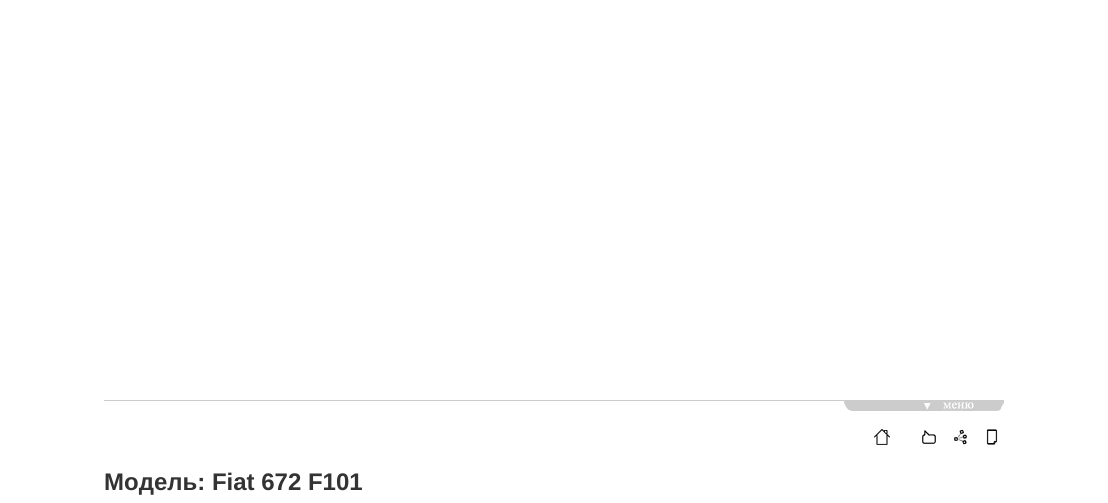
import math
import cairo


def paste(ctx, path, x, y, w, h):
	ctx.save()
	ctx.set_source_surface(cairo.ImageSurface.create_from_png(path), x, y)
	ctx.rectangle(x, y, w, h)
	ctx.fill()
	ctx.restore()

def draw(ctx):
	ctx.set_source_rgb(1, 1, 1)
	ctx.paint()
	paste(ctx, 'media/1.png', 844, 401, 160, 10)
	ctx.set_source_rgb(0.8, 0.8, 0.8)
	ctx.rectangle(104, 400, 900, 1)
	ctx.fill()
	paste(ctx, 'media/2.png', 874, 429, 16, 16)
	paste(ctx, 'media/3.png', 922, 430, 14, 14)
	paste(ctx, 'media/4.png', 954, 429, 13, 16)
	paste(ctx, 'media/5.png', 986, 429, 12, 17)
	ctx.select_font_face('Liberation Sans', cairo.FONT_SLANT_NORMAL, cairo.FONT_WEIGHT_BOLD)
	ctx.set_font_size(24)
	ctx.set_source_rgb(0.2, 0.2, 0.2)
	ctx.move_to(104, 490)
	ctx.show_text('Модель: Fiat 672 F101')


surface = cairo.ImageSurface(cairo.FORMAT_RGB24, 1108, 503)
ctx = cairo.Context(surface)
options = cairo.FontOptions()
options.set_hint_metrics(cairo.HINT_METRICS_OFF)
options.set_hint_style(cairo.HINT_STYLE_NONE)
ctx.set_font_options(options)
ctx.set_miter_limit(4)
draw(ctx)
surface.write_to_png('image.png')
